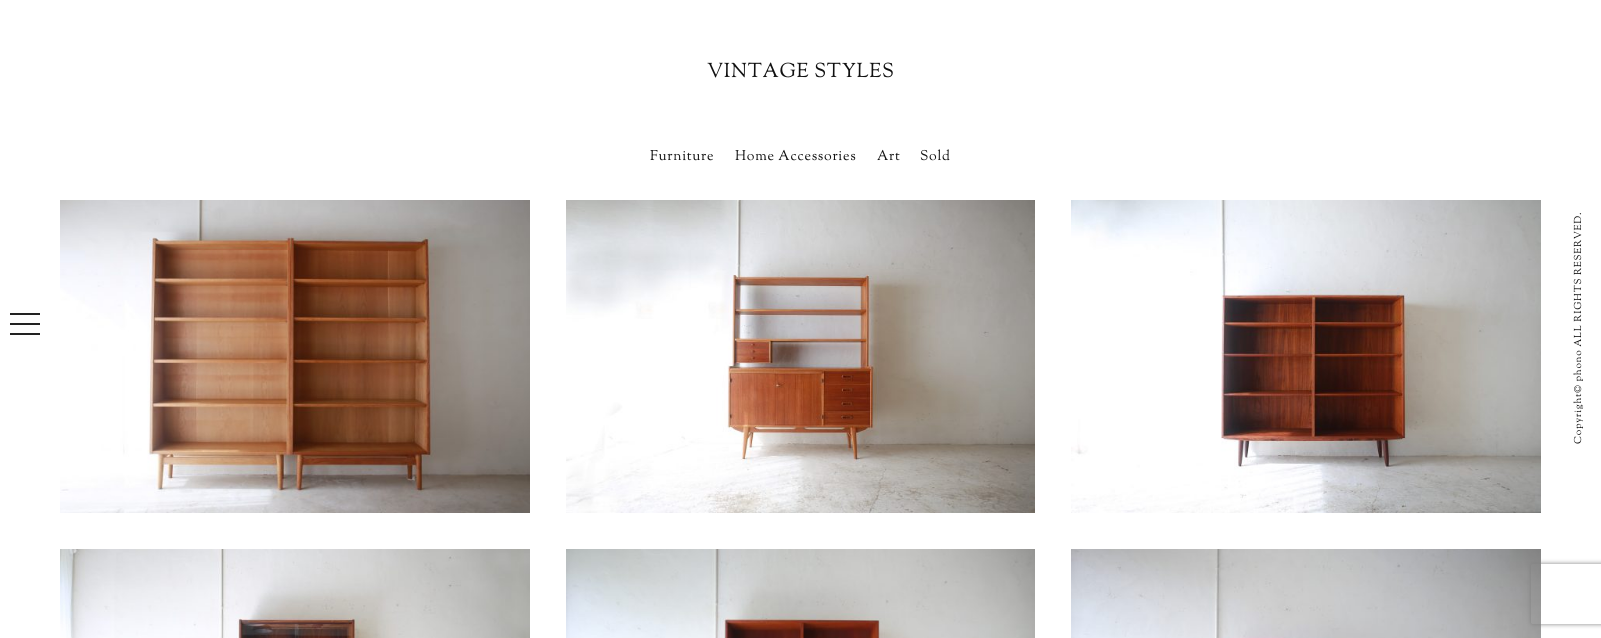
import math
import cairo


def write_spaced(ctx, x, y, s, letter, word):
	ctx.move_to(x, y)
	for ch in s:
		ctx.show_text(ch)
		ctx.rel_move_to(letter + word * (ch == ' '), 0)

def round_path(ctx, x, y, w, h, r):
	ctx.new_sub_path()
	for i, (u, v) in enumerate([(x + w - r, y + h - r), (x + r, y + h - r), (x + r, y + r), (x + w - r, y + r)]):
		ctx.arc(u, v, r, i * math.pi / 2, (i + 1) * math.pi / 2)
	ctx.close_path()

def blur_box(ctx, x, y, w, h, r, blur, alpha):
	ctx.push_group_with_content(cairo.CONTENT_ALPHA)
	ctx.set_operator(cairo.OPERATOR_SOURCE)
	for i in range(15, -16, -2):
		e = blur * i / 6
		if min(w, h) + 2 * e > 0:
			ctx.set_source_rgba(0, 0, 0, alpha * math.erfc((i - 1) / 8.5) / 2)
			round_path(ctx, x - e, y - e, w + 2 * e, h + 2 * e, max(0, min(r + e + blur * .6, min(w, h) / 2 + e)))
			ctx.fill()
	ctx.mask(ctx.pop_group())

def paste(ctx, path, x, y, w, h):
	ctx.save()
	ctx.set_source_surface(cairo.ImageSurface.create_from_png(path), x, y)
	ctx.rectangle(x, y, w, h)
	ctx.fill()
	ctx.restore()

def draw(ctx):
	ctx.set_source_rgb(1, 1, 1)
	ctx.paint()
	ctx.select_font_face('Sorts Mill Goudy')
	ctx.set_font_size(20)
	ctx.set_source_rgb(0.067, 0.067, 0.067)
	write_spaced(ctx, 707, 77, 'VINTAGE STYLES', 0.7, 0)
	ctx.set_font_size(14)
	for x, y, s in [
		(650, 160, 'Furniture'),
		(735, 160, 'Home Accessories'),
		(877, 160, 'Art'),
		(920, 160, 'Sold'),
	]:
		write_spaced(ctx, x, y, s, 0.7, 0)
	paste(ctx, 'media/1.png', 60, 200, 470, 313)
	paste(ctx, 'media/2.png', 566, 200, 469, 313)
	paste(ctx, 'media/3.png', 1071, 200, 470, 313)
	paste(ctx, 'media/4.png', 60, 549, 470, 89)
	paste(ctx, 'media/5.png', 566, 549, 469, 89)
	paste(ctx, 'media/6.png', 1071, 549, 470, 89)
	ctx.set_source_rgb(0.133, 0.133, 0.133)
	ctx.rectangle(10, 323, 30, 2)
	ctx.rectangle(10, 313, 30, 2)
	ctx.rectangle(10, 333, 30, 2)
	ctx.fill()
	ctx.set_font_size(10)
	ctx.set_source_rgb(0.067, 0.067, 0.067)
	ctx.save()
	ctx.translate(1581, 444)
	ctx.rotate(-90 * math.pi / 180)
	write_spaced(ctx, 0, 0, 'Copyright© phono ALL RIGHTS RESERVED.', 0.7, 0)
	ctx.restore()
	ctx.save()
	ctx.set_fill_rule(cairo.FILL_RULE_EVEN_ODD)
	ctx.new_path()
	ctx.move_to(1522, 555)
	ctx.line_to(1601, 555)
	ctx.line_to(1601, 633)
	ctx.line_to(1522, 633)
	ctx.close_path()
	ctx.move_to(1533, 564)
	ctx.line_to(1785, 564)
	ctx.curve_to(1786, 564, 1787, 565, 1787, 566)
	ctx.line_to(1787, 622)
	ctx.curve_to(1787, 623, 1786, 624, 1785, 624)
	ctx.line_to(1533, 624)
	ctx.curve_to(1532, 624, 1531, 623, 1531, 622)
	ctx.line_to(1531, 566)
	ctx.curve_to(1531, 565, 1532, 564, 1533, 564)
	ctx.close_path()
	ctx.clip()
	ctx.set_source_rgb(0.502, 0.502, 0.502)
	blur_box(ctx, 1531, 564, 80, 60, 2, 2.5, 1)
	ctx.restore()


surface = cairo.ImageSurface(cairo.FORMAT_RGB24, 1601, 638)
ctx = cairo.Context(surface)
options = cairo.FontOptions()
options.set_hint_metrics(cairo.HINT_METRICS_OFF)
options.set_hint_style(cairo.HINT_STYLE_NONE)
ctx.set_font_options(options)
ctx.set_miter_limit(4)
draw(ctx)
surface.write_to_png('image.png')
